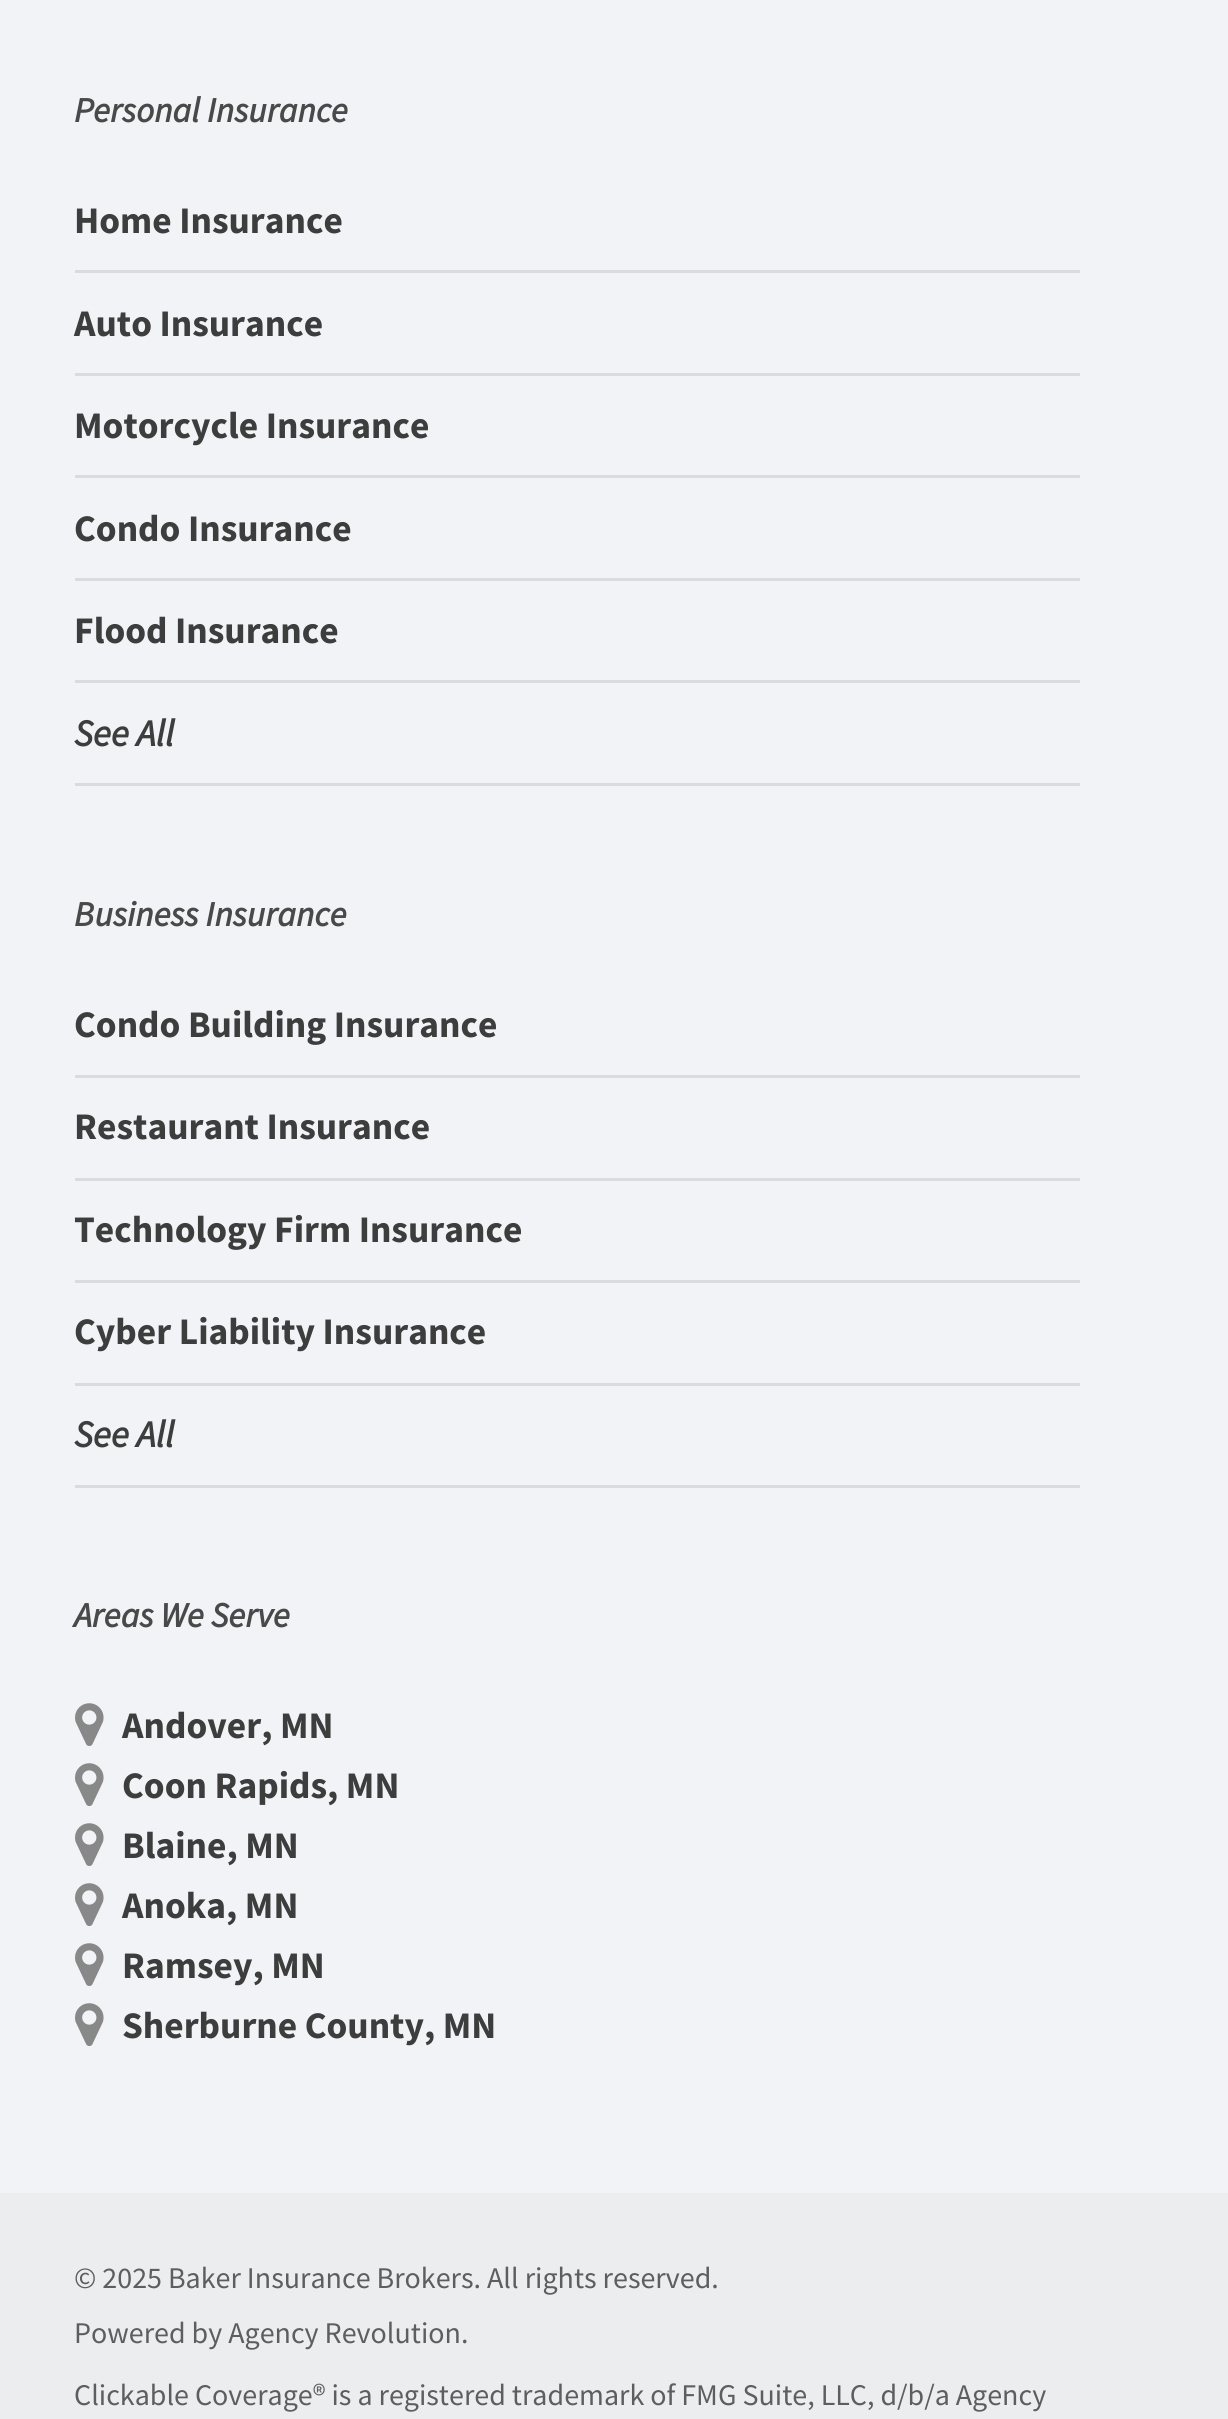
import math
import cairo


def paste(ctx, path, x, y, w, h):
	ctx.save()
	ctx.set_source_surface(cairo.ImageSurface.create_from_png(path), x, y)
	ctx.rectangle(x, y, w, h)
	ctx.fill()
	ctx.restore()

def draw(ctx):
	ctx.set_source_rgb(0.945, 0.953, 0.961)
	ctx.paint()
	ctx.select_font_face('Source Sans Pro', cairo.FONT_SLANT_ITALIC, cairo.FONT_WEIGHT_BOLD)
	ctx.set_font_size(35)
	ctx.set_source_rgb(0.286, 0.286, 0.286)
	ctx.move_to(74, 122)
	ctx.show_text('Personal Insurance')
	ctx.set_source_rgb(0.851, 0.859, 0.867)
	ctx.rectangle(75, 270, 1005, 3)
	ctx.fill()
	ctx.select_font_face('Source Sans Pro', cairo.FONT_SLANT_NORMAL, cairo.FONT_WEIGHT_BOLD)
	ctx.set_font_size(37.5)
	ctx.set_source_rgb(0.239, 0.239, 0.239)
	ctx.move_to(74, 233)
	ctx.show_text('Home Insurance')
	ctx.set_source_rgb(0.851, 0.859, 0.867)
	ctx.rectangle(75, 373, 1005, 3)
	ctx.fill()
	ctx.set_source_rgb(0.239, 0.239, 0.239)
	ctx.move_to(74, 336)
	ctx.show_text('Auto Insurance')
	ctx.set_source_rgb(0.851, 0.859, 0.867)
	ctx.rectangle(75, 475, 1005, 3)
	ctx.fill()
	ctx.set_source_rgb(0.239, 0.239, 0.239)
	ctx.move_to(74, 438)
	ctx.show_text('Motorcycle Insurance')
	ctx.set_source_rgb(0.851, 0.859, 0.867)
	ctx.rectangle(75, 578, 1005, 3)
	ctx.fill()
	ctx.set_source_rgb(0.239, 0.239, 0.239)
	ctx.move_to(74, 541)
	ctx.show_text('Condo Insurance')
	ctx.set_source_rgb(0.851, 0.859, 0.867)
	ctx.rectangle(75, 680, 1005, 3)
	ctx.fill()
	ctx.set_source_rgb(0.239, 0.239, 0.239)
	ctx.move_to(74, 643)
	ctx.show_text('Flood Insurance')
	ctx.set_source_rgb(0.851, 0.859, 0.867)
	ctx.rectangle(75, 783, 1005, 3)
	ctx.fill()
	ctx.select_font_face('Source Sans Pro', cairo.FONT_SLANT_ITALIC, cairo.FONT_WEIGHT_BOLD)
	ctx.set_source_rgb(0.239, 0.239, 0.239)
	ctx.move_to(74, 746)
	ctx.show_text('See All')
	ctx.set_font_size(35)
	ctx.set_source_rgb(0.286, 0.286, 0.286)
	ctx.move_to(74, 926)
	ctx.show_text('Business Insurance')
	ctx.set_source_rgb(0.851, 0.859, 0.867)
	ctx.rectangle(75, 1075, 1005, 3)
	ctx.fill()
	ctx.select_font_face('Source Sans Pro', cairo.FONT_SLANT_NORMAL, cairo.FONT_WEIGHT_BOLD)
	ctx.set_font_size(37.5)
	ctx.set_source_rgb(0.239, 0.239, 0.239)
	ctx.move_to(74, 1037)
	ctx.show_text('Condo Building Insurance')
	ctx.set_source_rgb(0.851, 0.859, 0.867)
	ctx.rectangle(75, 1178, 1005, 3)
	ctx.fill()
	ctx.set_source_rgb(0.239, 0.239, 0.239)
	ctx.move_to(74, 1139)
	ctx.show_text('Restaurant Insurance')
	ctx.set_source_rgb(0.851, 0.859, 0.867)
	ctx.rectangle(75, 1280, 1005, 3)
	ctx.fill()
	ctx.set_source_rgb(0.239, 0.239, 0.239)
	ctx.move_to(74, 1242)
	ctx.show_text('Technology Firm Insurance')
	ctx.set_source_rgb(0.851, 0.859, 0.867)
	ctx.rectangle(75, 1383, 1005, 3)
	ctx.fill()
	ctx.set_source_rgb(0.239, 0.239, 0.239)
	ctx.move_to(74, 1344)
	ctx.show_text('Cyber Liability Insurance')
	ctx.set_source_rgb(0.851, 0.859, 0.867)
	ctx.rectangle(75, 1485, 1005, 3)
	ctx.fill()
	ctx.select_font_face('Source Sans Pro', cairo.FONT_SLANT_ITALIC, cairo.FONT_WEIGHT_BOLD)
	ctx.set_source_rgb(0.239, 0.239, 0.239)
	ctx.move_to(74, 1447)
	ctx.show_text('See All')
	ctx.set_font_size(35)
	ctx.set_source_rgb(0.286, 0.286, 0.286)
	ctx.move_to(74, 1627)
	ctx.show_text('Areas We Serve')
	paste(ctx, 'media/1.png', 75, 1703, 29, 43)
	ctx.select_font_face('Source Sans Pro', cairo.FONT_SLANT_NORMAL, cairo.FONT_WEIGHT_BOLD)
	ctx.set_font_size(37.5)
	ctx.set_source_rgb(0.239, 0.239, 0.239)
	ctx.move_to(122, 1738)
	ctx.show_text('Andover, MN')
	paste(ctx, 'media/1.png', 75, 1763, 29, 43)
	ctx.move_to(122, 1798)
	ctx.show_text('Coon Rapids, MN')
	paste(ctx, 'media/1.png', 75, 1823, 29, 43)
	ctx.move_to(122, 1858)
	ctx.show_text('Blaine, MN')
	paste(ctx, 'media/1.png', 75, 1883, 29, 43)
	ctx.move_to(122, 1918)
	ctx.show_text('Anoka, MN')
	paste(ctx, 'media/1.png', 75, 1943, 29, 43)
	ctx.move_to(122, 1978)
	ctx.show_text('Ramsey, MN')
	paste(ctx, 'media/1.png', 75, 2003, 29, 43)
	ctx.move_to(122, 2038)
	ctx.show_text('Sherburne County, MN')
	ctx.set_source_rgb(0.918, 0.929, 0.937)
	ctx.rectangle(0, 2193, 1228, 226)
	ctx.fill()
	ctx.select_font_face('Source Sans Pro')
	ctx.set_font_size(30)
	ctx.set_source_rgb(0.369, 0.369, 0.369)
	for x, y, s in [
		(74, 2288, '© 2025 Baker Insurance Brokers. All rights reserved.'),
		(74, 2343, 'Powered by Agency Revolution.'),
		(74, 2405, 'Clickable Coverage® is a registered trademark of FMG Suite, LLC, d/b/a Agency'),
	]:
		ctx.move_to(x, y)
		ctx.show_text(s)


surface = cairo.ImageSurface(cairo.FORMAT_RGB24, 1228, 2419)
ctx = cairo.Context(surface)
options = cairo.FontOptions()
options.set_hint_metrics(cairo.HINT_METRICS_OFF)
options.set_hint_style(cairo.HINT_STYLE_NONE)
ctx.set_font_options(options)
ctx.set_miter_limit(4)
draw(ctx)
surface.write_to_png('image.png')
